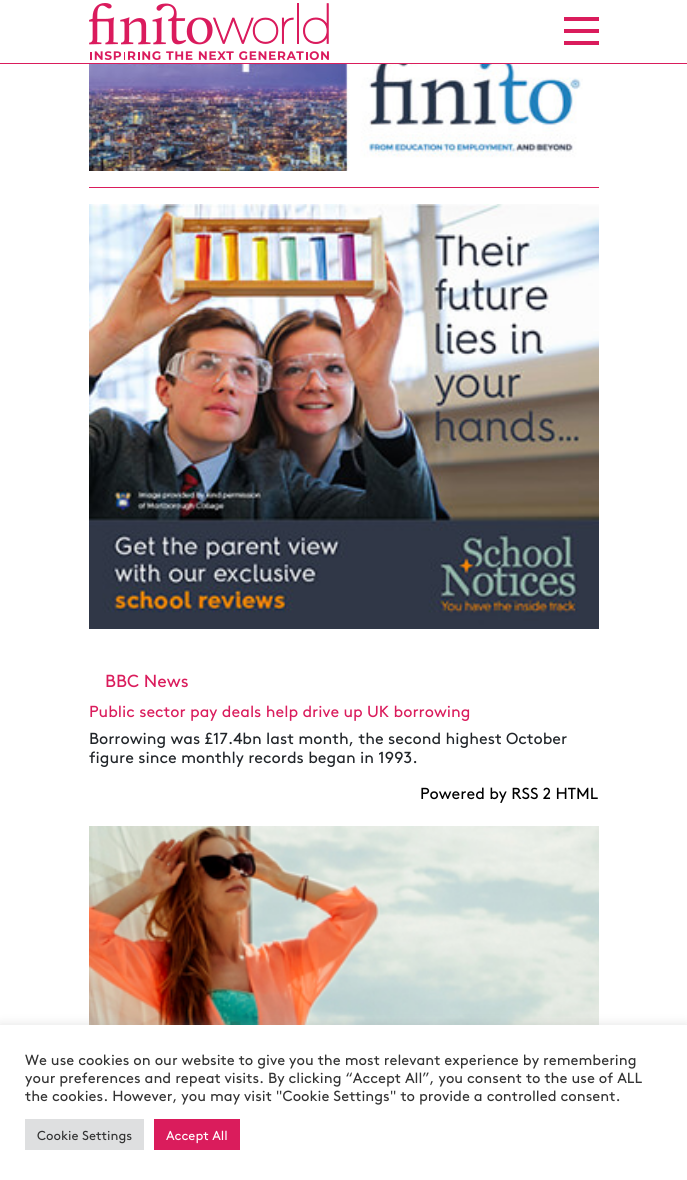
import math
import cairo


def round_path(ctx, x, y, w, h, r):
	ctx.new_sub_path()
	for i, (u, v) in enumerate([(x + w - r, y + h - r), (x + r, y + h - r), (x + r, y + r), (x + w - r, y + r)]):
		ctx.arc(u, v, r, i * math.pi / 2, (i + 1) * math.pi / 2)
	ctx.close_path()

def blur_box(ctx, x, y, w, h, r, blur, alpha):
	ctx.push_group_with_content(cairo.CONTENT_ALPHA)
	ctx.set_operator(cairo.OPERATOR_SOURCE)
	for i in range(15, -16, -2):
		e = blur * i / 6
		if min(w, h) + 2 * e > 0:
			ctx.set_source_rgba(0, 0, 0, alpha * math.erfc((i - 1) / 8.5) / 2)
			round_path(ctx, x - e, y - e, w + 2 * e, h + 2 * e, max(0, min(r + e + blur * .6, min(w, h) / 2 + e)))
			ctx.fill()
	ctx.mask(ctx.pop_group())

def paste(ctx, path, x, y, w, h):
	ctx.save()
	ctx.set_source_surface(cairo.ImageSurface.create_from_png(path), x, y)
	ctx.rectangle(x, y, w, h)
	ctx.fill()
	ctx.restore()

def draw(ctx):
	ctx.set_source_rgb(1, 1, 1)
	ctx.paint()
	paste(ctx, 'media/1.png', 89, 3, 240, 57)
	ctx.set_source_rgb(0.855, 0.11, 0.361)
	ctx.rectangle(564, 29, 35, 4)
	ctx.rectangle(564, 17, 35, 4)
	ctx.rectangle(564, 41, 35, 4)
	ctx.rectangle(0, 63, 687, 1)
	ctx.fill()
	paste(ctx, 'media/2.png', 89, 64, 494, 107)
	ctx.rectangle(89, 187, 510, 1)
	ctx.fill()
	paste(ctx, 'media/3.png', 89, 204, 510, 425)
	ctx.select_font_face('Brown')
	ctx.set_font_size(17.5)
	ctx.move_to(105, 687)
	ctx.show_text('BBC News')
	ctx.set_font_size(16)
	ctx.move_to(89, 717)
	ctx.show_text('Public sector pay deals help drive up UK borrowing')
	ctx.set_source_rgb(0.129, 0.145, 0.161)
	ctx.move_to(89, 744)
	ctx.show_text('Borrowing was £17.4bn last month, the second highest October')
	ctx.move_to(89, 763)
	ctx.show_text('figure since monthly records began in 1993.')
	ctx.set_source_rgb(0, 0, 0)
	ctx.move_to(420, 799)
	ctx.show_text('Powered by RSS 2 HTML')
	paste(ctx, 'media/4.png', 89, 826, 510, 199)
	ctx.set_source_rgb(0.675, 0.671, 0.671)
	blur_box(ctx, 0, 1024, 687, 155, 0, 5, 0.3)
	ctx.set_source_rgb(1, 1, 1)
	ctx.rectangle(0, 1025, 687, 155)
	ctx.fill()
	ctx.set_font_size(14.65)
	ctx.set_source_rgb(0.2, 0.2, 0.2)
	for x, y, s in [
		(25, 1065, 'We use cookies on our website to give you the most relevant experience by remembering'),
		(25, 1083, 'your preferences and repeat visits. By clicking “Accept All”, you consent to the use of ALL'),
		(25, 1101, 'the cookies. However, you may visit "Cookie Settings" to provide a controlled consent.'),
	]:
		ctx.move_to(x, y)
		ctx.show_text(s)
	ctx.set_source_rgb(0.871, 0.875, 0.878)
	ctx.rectangle(25, 1119, 119, 31)
	ctx.fill()
	ctx.set_font_size(13)
	ctx.set_source_rgb(0.2, 0.2, 0.2)
	ctx.move_to(37, 1140)
	ctx.show_text('Cookie Settings')
	ctx.set_source_rgb(0.855, 0.11, 0.361)
	ctx.rectangle(154, 1119, 86, 31)
	ctx.fill()
	ctx.set_source_rgb(1, 1, 1)
	ctx.move_to(166, 1140)
	ctx.show_text('Accept All')


surface = cairo.ImageSurface(cairo.FORMAT_RGB24, 687, 1180)
ctx = cairo.Context(surface)
options = cairo.FontOptions()
options.set_hint_metrics(cairo.HINT_METRICS_OFF)
options.set_hint_style(cairo.HINT_STYLE_NONE)
ctx.set_font_options(options)
ctx.set_miter_limit(4)
draw(ctx)
surface.write_to_png('image.png')
